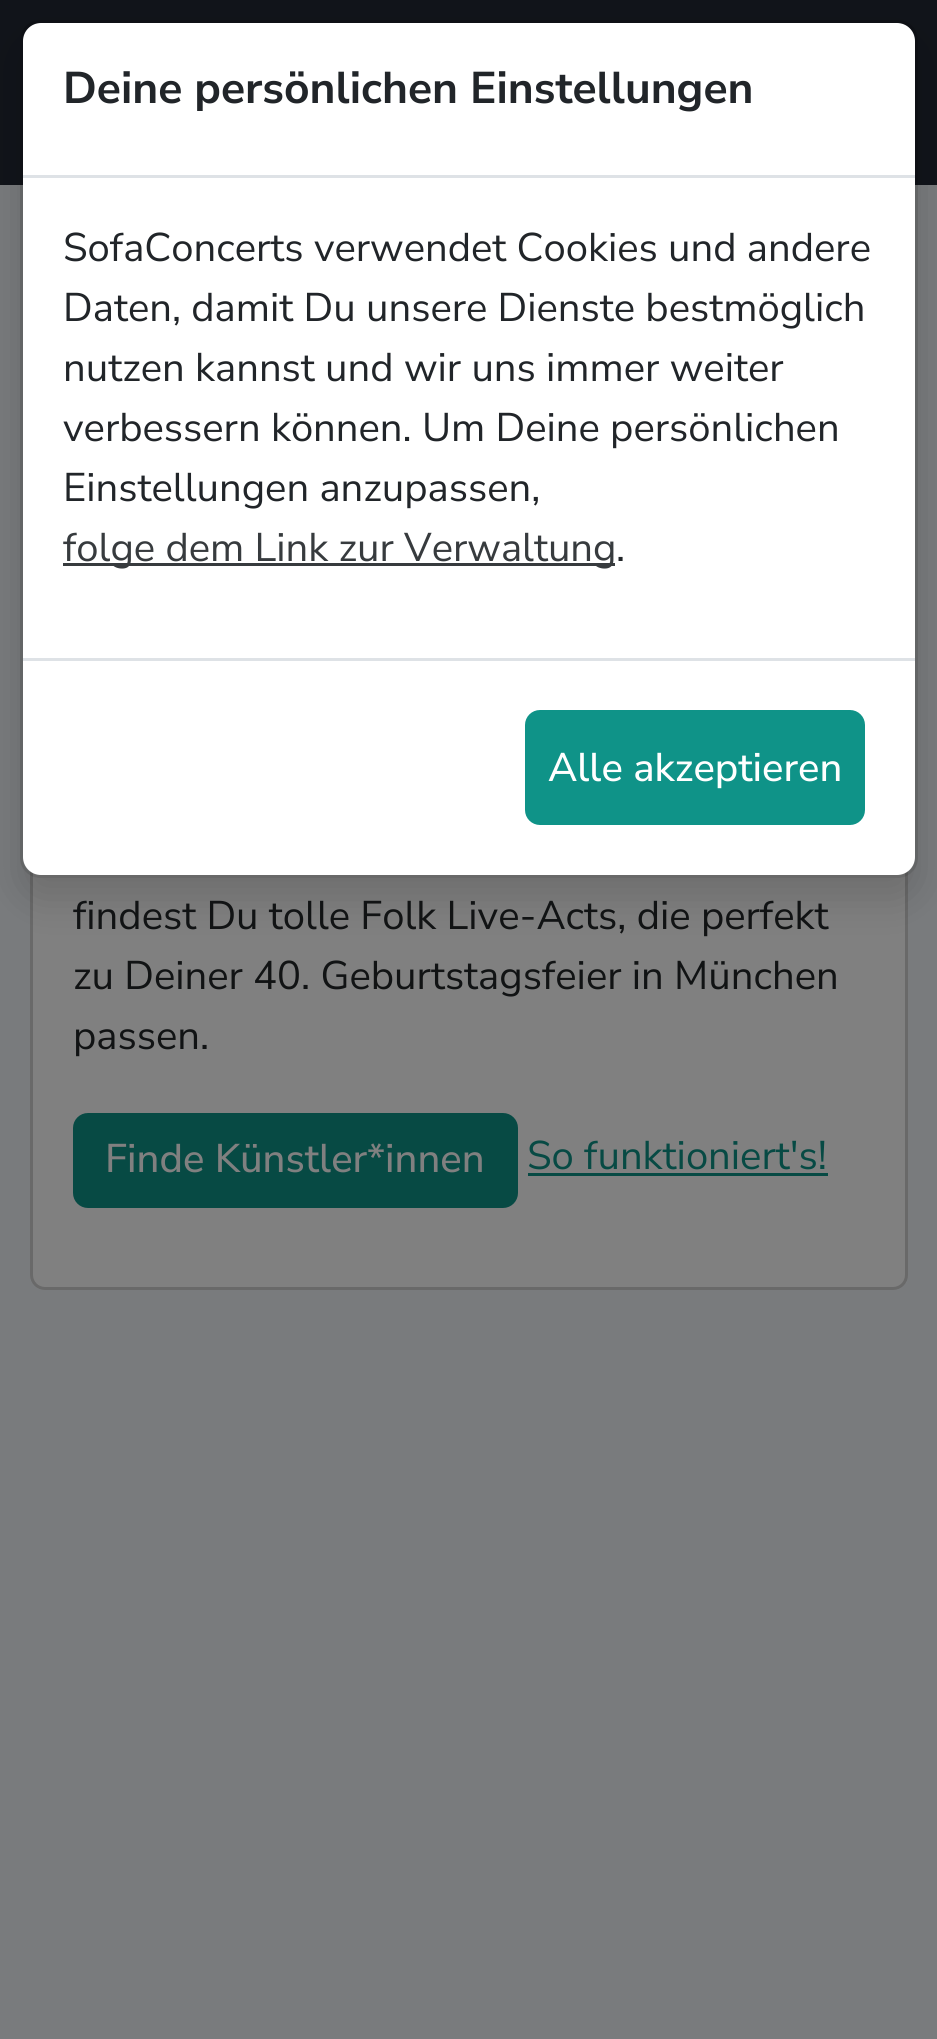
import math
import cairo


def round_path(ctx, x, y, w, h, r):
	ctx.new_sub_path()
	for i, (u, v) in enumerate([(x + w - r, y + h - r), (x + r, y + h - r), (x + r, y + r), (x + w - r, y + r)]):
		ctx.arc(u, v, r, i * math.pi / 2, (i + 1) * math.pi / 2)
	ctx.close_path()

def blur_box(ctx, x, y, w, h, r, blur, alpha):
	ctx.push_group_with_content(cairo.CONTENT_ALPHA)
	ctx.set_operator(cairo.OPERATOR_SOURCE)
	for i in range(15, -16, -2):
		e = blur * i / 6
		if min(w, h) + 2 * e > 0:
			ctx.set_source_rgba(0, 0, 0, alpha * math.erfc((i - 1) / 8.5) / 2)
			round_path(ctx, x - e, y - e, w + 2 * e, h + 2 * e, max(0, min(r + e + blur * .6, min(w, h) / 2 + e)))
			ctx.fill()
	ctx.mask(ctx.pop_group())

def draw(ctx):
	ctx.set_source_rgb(0.475, 0.482, 0.49)
	ctx.paint()
	ctx.set_source_rgb(0.067, 0.082, 0.102)
	ctx.rectangle(0, 0, 937, 185)
	ctx.fill()
	ctx.set_source_rgb(0.502, 0.502, 0.502)
	round_path(ctx, 30, 260, 878, 1030, 15)
	ctx.fill()
	round_path(ctx, 31.5, 261.5, 875, 1027, 13.5)
	ctx.set_source_rgba(0, 0, 0, 0.18)
	ctx.set_line_width(3)
	ctx.stroke()
	ctx.save()
	ctx.set_fill_rule(cairo.FILL_RULE_EVEN_ODD)
	ctx.new_path()
	ctx.move_to(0, 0)
	ctx.line_to(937, 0)
	ctx.line_to(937, 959)
	ctx.line_to(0, 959)
	ctx.close_path()
	ctx.move_to(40, 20)
	ctx.line_to(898, 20)
	ctx.curve_to(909, 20, 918, 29, 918, 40)
	ctx.line_to(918, 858)
	ctx.curve_to(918, 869, 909, 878, 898, 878)
	ctx.line_to(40, 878)
	ctx.curve_to(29, 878, 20, 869, 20, 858)
	ctx.line_to(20, 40)
	ctx.curve_to(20, 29, 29, 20, 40, 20)
	ctx.close_path()
	ctx.clip()
	ctx.set_source_rgb(0, 0, 0)
	blur_box(ctx, 20, 40, 898, 858, 20, 20, 0.15)
	ctx.restore()
	ctx.set_source_rgb(1, 1, 1)
	round_path(ctx, 23, 23, 892, 852, 18)
	ctx.fill()
	round_path(ctx, 21.5, 21.5, 895, 855, 18.5)
	ctx.set_source_rgba(0, 0, 0, 0.18)
	ctx.stroke()
	ctx.set_source_rgb(0.871, 0.886, 0.902)
	ctx.rectangle(23, 175, 892, 3)
	ctx.fill()
	ctx.select_font_face('Nunito Sans', cairo.FONT_SLANT_NORMAL, cairo.FONT_WEIGHT_BOLD)
	ctx.set_font_size(44.4)
	ctx.set_source_rgb(0.129, 0.145, 0.161)
	ctx.move_to(63, 103)
	ctx.show_text('Deine persönlichen Einstellungen')
	ctx.select_font_face('Nunito Sans')
	ctx.set_font_size(40)
	for x, y, s in [
		(63, 261, 'SofaConcerts verwendet Cookies und andere'),
		(63, 321, 'Daten, damit Du unsere Dienste bestmöglich'),
		(63, 381, 'nutzen kannst und wir uns immer weiter'),
		(63, 441, 'verbessern können. Um Deine persönlichen'),
		(63, 501, 'Einstellungen anzupassen,'),
	]:
		ctx.move_to(x, y)
		ctx.show_text(s)
	ctx.set_source_rgb(0.216, 0.231, 0.243)
	ctx.rectangle(63, 563, 552, 3)
	ctx.fill()
	ctx.move_to(63, 561)
	ctx.show_text('folge dem Link zur Verwaltung')
	ctx.set_source_rgb(0.129, 0.145, 0.161)
	ctx.move_to(616, 561)
	ctx.show_text('.')
	ctx.set_source_rgb(0.871, 0.886, 0.902)
	ctx.rectangle(23, 658, 892, 3)
	ctx.fill()
	ctx.set_source_rgb(0.059, 0.576, 0.533)
	round_path(ctx, 526.5, 711.5, 337, 112, 13.5)
	ctx.fill_preserve()
	ctx.stroke()
	ctx.select_font_face('Nunito Sans Medium')
	ctx.set_source_rgb(1, 1, 1)
	ctx.move_to(548, 781)
	ctx.show_text('Alle akzeptieren')
	ctx.select_font_face('Nunito Sans')
	ctx.set_source_rgb(0.067, 0.075, 0.082)
	for x, y, s in [
		(73, 929, 'findest Du tolle Folk Live-Acts, die perfekt'),
		(73, 989, 'zu Deiner 40. Geburtstagsfeier in München'),
		(73, 1049, 'passen.'),
	]:
		ctx.move_to(x, y)
		ctx.show_text(s)
	ctx.set_source_rgb(0.031, 0.29, 0.267)
	round_path(ctx, 74.5, 1114.5, 442, 92, 13.5)
	ctx.fill_preserve()
	ctx.stroke()
	ctx.select_font_face('Nunito Sans Medium')
	ctx.set_source_rgb(0.502, 0.502, 0.502)
	ctx.move_to(105, 1172)
	ctx.show_text('Finde Künstler*innen')
	ctx.select_font_face('Nunito Sans')
	ctx.set_source_rgb(0.031, 0.29, 0.267)
	ctx.move_to(527, 1169)
	ctx.show_text('So funktioniert\'s!')
	ctx.rectangle(528, 1173, 300, 3)
	ctx.fill()


surface = cairo.ImageSurface(cairo.FORMAT_RGB24, 937, 2039)
ctx = cairo.Context(surface)
options = cairo.FontOptions()
options.set_hint_metrics(cairo.HINT_METRICS_OFF)
options.set_hint_style(cairo.HINT_STYLE_NONE)
ctx.set_font_options(options)
ctx.set_miter_limit(4)
draw(ctx)
surface.write_to_png('image.png')
